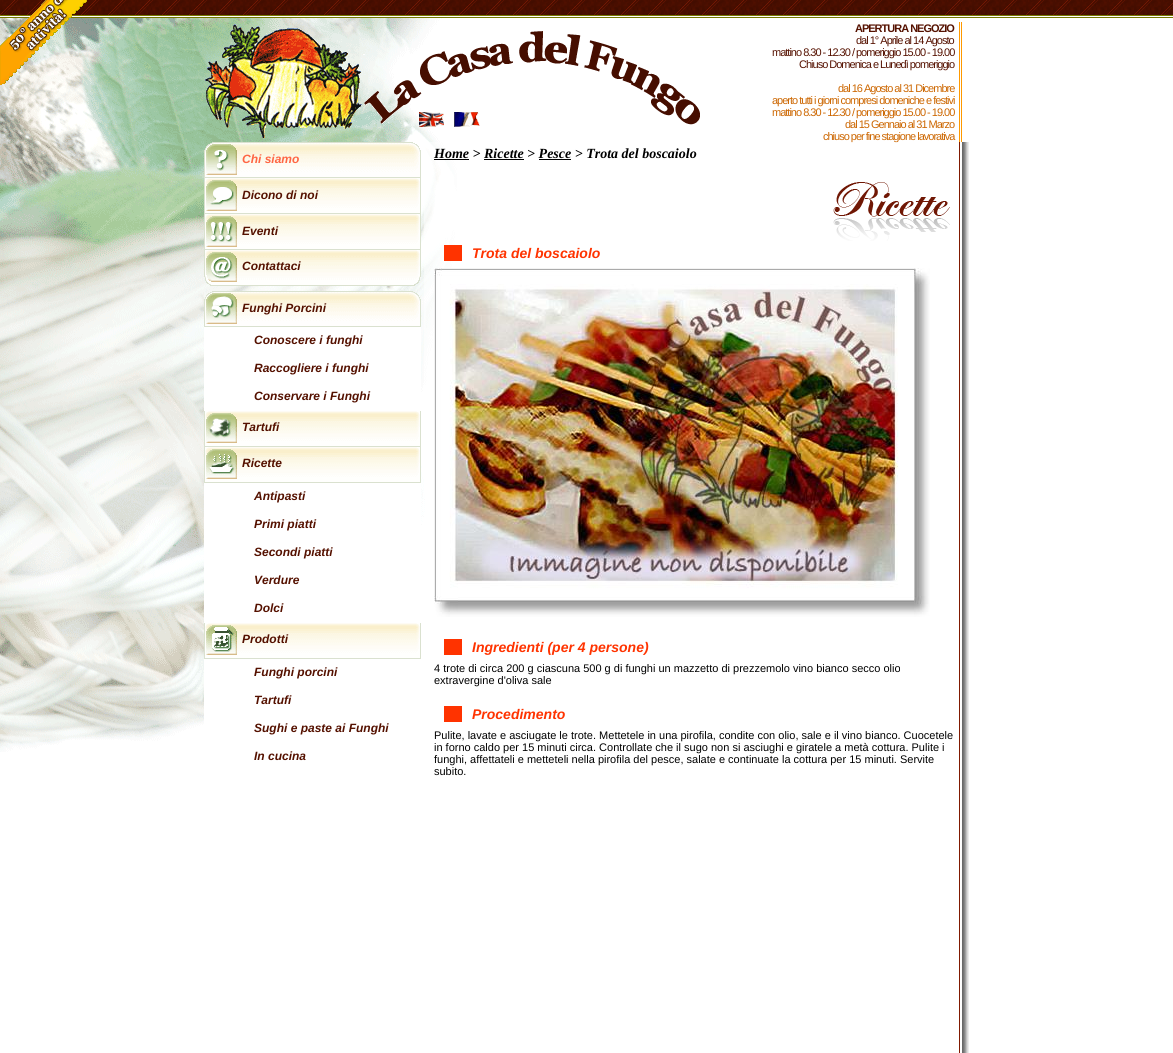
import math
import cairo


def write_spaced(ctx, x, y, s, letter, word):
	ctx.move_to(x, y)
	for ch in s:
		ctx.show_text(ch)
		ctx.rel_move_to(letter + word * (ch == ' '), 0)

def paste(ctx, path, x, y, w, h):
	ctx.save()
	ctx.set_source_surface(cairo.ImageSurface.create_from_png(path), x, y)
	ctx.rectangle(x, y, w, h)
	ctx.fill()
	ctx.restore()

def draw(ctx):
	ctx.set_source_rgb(1, 1, 1)
	ctx.paint()
	paste(ctx, 'media/1.png', 0, 0, 1173, 15)
	paste(ctx, 'media/3.png', 0, 18, 457, 734)
	ctx.set_source_rgb(0.467, 0.467, 0)
	ctx.rectangle(0, 15, 1173, 1)
	ctx.fill()
	ctx.rectangle(0, 17, 1173, 1)
	ctx.fill()
	paste(ctx, 'media/2.png', 0, 0, 87, 85)
	paste(ctx, 'media/4.png', 417, 499, 552, 554)
	paste(ctx, 'media/5.png', 363, 31, 337, 94)
	paste(ctx, 'media/6.png', 205, 24, 157, 114)
	paste(ctx, 'media/7.png', 419, 112, 25, 15)
	paste(ctx, 'media/8.png', 454, 112, 26, 15)
	ctx.set_source_rgb(1, 0.6, 0)
	ctx.rectangle(959, 22, 1, 120)
	ctx.fill()
	ctx.rectangle(961, 22, 1, 120)
	ctx.fill()
	ctx.select_font_face('Liberation Sans', cairo.FONT_SLANT_NORMAL, cairo.FONT_WEIGHT_BOLD)
	ctx.set_font_size(11)
	ctx.set_source_rgb(0.333, 0.067, 0)
	write_spaced(ctx, 855, 32, 'APERTURA NEGOZIO', -1, 0)
	ctx.select_font_face('Liberation Sans')
	for x, y, s in [
		(856, 44, 'dal 1° Aprile al 14 Agosto'),
		(772, 56, 'mattino 8.30 - 12.30 / pomeriggio 15.00 - 19.00'),
		(799, 68, 'Chiuso Domenica e Lunedì pomeriggio'),
	]:
		write_spaced(ctx, x, y, s, -1, 0)
	ctx.set_source_rgb(0.8, 0.4, 0)
	for x, y, s in [
		(838, 92, 'dal 16 Agosto al 31 Dicembre'),
		(772, 104, 'aperto tutti i giorni compresi domeniche e festivi'),
		(772, 116, 'mattino 8.30 - 12.30 / pomeriggio 15.00 - 19.00'),
		(845, 128, 'dal 15 Gennaio al 31 Marzo'),
		(823, 140, 'chiuso per fine stagione lavorativa'),
	]:
		write_spaced(ctx, x, y, s, -1, 0)
	paste(ctx, 'media/9.png', 204, 142, 217, 36)
	paste(ctx, 'media/10.png', 206, 144, 31, 31)
	ctx.select_font_face('Liberation Sans', cairo.FONT_SLANT_ITALIC, cairo.FONT_WEIGHT_BOLD)
	ctx.set_font_size(12)
	ctx.set_source_rgb(1, 0.4, 0.267)
	ctx.move_to(242, 163)
	ctx.show_text('Chi siamo')
	paste(ctx, 'media/11.png', 204, 178, 217, 36)
	paste(ctx, 'media/12.png', 206, 180, 31, 31)
	ctx.set_source_rgb(0.333, 0.067, 0)
	ctx.move_to(242, 199)
	ctx.show_text('Dicono di noi')
	paste(ctx, 'media/11.png', 204, 214, 217, 36)
	paste(ctx, 'media/13.png', 206, 216, 31, 31)
	ctx.move_to(242, 235)
	ctx.show_text('Eventi')
	paste(ctx, 'media/14.png', 204, 250, 217, 36)
	paste(ctx, 'media/15.png', 206, 252, 31, 30)
	ctx.move_to(242, 270)
	ctx.show_text('Contattaci')
	paste(ctx, 'media/16.png', 204, 291, 217, 36)
	paste(ctx, 'media/17.png', 206, 293, 31, 31)
	ctx.move_to(242, 312)
	ctx.show_text('Funghi Porcini')
	ctx.set_source_rgb(1, 1, 1)
	ctx.rectangle(204, 327, 217, 84)
	ctx.fill()
	ctx.set_source_rgb(0.333, 0.067, 0)
	for x, y, s in [
		(254, 344, 'Conoscere i funghi'),
		(254, 372, 'Raccogliere i funghi'),
		(254, 400, 'Conservare i Funghi'),
	]:
		ctx.move_to(x, y)
		ctx.show_text(s)
	paste(ctx, 'media/11.png', 204, 411, 217, 36)
	paste(ctx, 'media/18.png', 206, 413, 31, 30)
	ctx.move_to(242, 431)
	ctx.show_text('Tartufi')
	paste(ctx, 'media/11.png', 204, 447, 217, 36)
	paste(ctx, 'media/19.png', 206, 449, 31, 30)
	ctx.move_to(242, 467)
	ctx.show_text('Ricette')
	ctx.set_source_rgb(1, 1, 1)
	ctx.rectangle(204, 483, 217, 56)
	ctx.fill()
	ctx.set_source_rgb(0.333, 0.067, 0)
	ctx.move_to(254, 500)
	ctx.show_text('Antipasti')
	ctx.move_to(254, 528)
	ctx.show_text('Primi piatti')
	ctx.set_source_rgb(1, 1, 1)
	ctx.rectangle(204, 539, 197, 28)
	ctx.fill()
	ctx.set_source_rgb(0.333, 0.067, 0)
	ctx.move_to(254, 556)
	ctx.show_text('Secondi piatti')
	ctx.set_source_rgb(1, 1, 1)
	ctx.rectangle(204, 567, 178, 28)
	ctx.fill()
	ctx.set_source_rgb(0.333, 0.067, 0)
	ctx.move_to(254, 584)
	ctx.show_text('Verdure')
	ctx.set_source_rgb(1, 1, 1)
	ctx.rectangle(204, 595, 183, 28)
	ctx.fill()
	ctx.set_source_rgb(0.333, 0.067, 0)
	ctx.move_to(254, 612)
	ctx.show_text('Dolci')
	paste(ctx, 'media/11.png', 204, 623, 217, 36)
	paste(ctx, 'media/20.png', 206, 625, 31, 30)
	ctx.move_to(242, 643)
	ctx.show_text('Prodotti')
	ctx.set_source_rgb(1, 1, 1)
	ctx.rectangle(204, 659, 173, 28)
	ctx.fill()
	ctx.set_source_rgb(0.333, 0.067, 0)
	ctx.move_to(254, 676)
	ctx.show_text('Funghi porcini')
	ctx.set_source_rgb(1, 1, 1)
	ctx.rectangle(204, 687, 151, 28)
	ctx.fill()
	ctx.set_source_rgb(0.333, 0.067, 0)
	ctx.move_to(254, 704)
	ctx.show_text('Tartufi')
	ctx.set_source_rgb(1, 1, 1)
	ctx.rectangle(204, 715, 61, 14)
	ctx.fill()
	ctx.set_source_rgb(0.333, 0.067, 0)
	ctx.move_to(254, 732)
	ctx.show_text('Sughi e paste ai Funghi')
	ctx.move_to(254, 760)
	ctx.show_text('In cucina')
	paste(ctx, 'media/21.png', 424, 142, 545, 357)
	ctx.select_font_face('Liberation Serif', cairo.FONT_SLANT_ITALIC, cairo.FONT_WEIGHT_BOLD)
	ctx.set_font_size(14)
	ctx.set_source_rgb(0, 0, 0)
	ctx.move_to(434, 158)
	ctx.show_text('Home > Ricette > Pesce > Trota del boscaiolo')
	ctx.rectangle(434, 159, 35, 1)
	ctx.rectangle(484, 159, 40, 1)
	ctx.rectangle(539, 159, 32, 1)
	ctx.fill()
	paste(ctx, 'media/22.png', 833, 182, 117, 59)
	ctx.set_source_rgb(1, 0.2, 0)
	ctx.rectangle(444, 245, 18, 16)
	ctx.fill()
	ctx.select_font_face('Liberation Sans', cairo.FONT_SLANT_ITALIC, cairo.FONT_WEIGHT_BOLD)
	ctx.move_to(472, 258)
	ctx.show_text('Trota del boscaiolo')
	paste(ctx, 'media/23.png', 434, 268, 496, 349)
	ctx.rectangle(444, 639, 18, 16)
	ctx.fill()
	ctx.move_to(472, 652)
	ctx.show_text('Ingredienti (per 4 persone)')
	ctx.select_font_face('Liberation Sans')
	ctx.set_font_size(11)
	ctx.set_source_rgb(0, 0, 0)
	ctx.move_to(434, 672)
	ctx.show_text('4 trote di circa 200 g ciascuna 500 g di funghi un mazzetto di prezzemolo vino bianco secco olio')
	ctx.move_to(434, 684)
	ctx.show_text('extravergine d\'oliva sale')
	ctx.set_source_rgb(1, 0.2, 0)
	ctx.rectangle(444, 706, 18, 16)
	ctx.fill()
	ctx.select_font_face('Liberation Sans', cairo.FONT_SLANT_ITALIC, cairo.FONT_WEIGHT_BOLD)
	ctx.set_font_size(14)
	ctx.move_to(472, 719)
	ctx.show_text('Procedimento')
	ctx.select_font_face('Liberation Sans')
	ctx.set_font_size(11)
	ctx.set_source_rgb(0, 0, 0)
	for x, y, s in [
		(434, 739, 'Pulite, lavate e asciugate le trote. Mettetele in una pirofila, condite con olio, sale e il vino bianco. Cuocetele'),
		(434, 751, 'in forno caldo per 15 minuti circa. Controllate che il sugo non si asciughi e giratele a metà cottura. Pulite i'),
		(434, 763, 'funghi, affettateli e metteteli nella pirofila del pesce, salate e continuate la cottura per 15 minuti. Servite'),
		(434, 775, 'subito.'),
	]:
		ctx.move_to(x, y)
		ctx.show_text(s)


surface = cairo.ImageSurface(cairo.FORMAT_RGB24, 1173, 1053)
ctx = cairo.Context(surface)
options = cairo.FontOptions()
options.set_hint_metrics(cairo.HINT_METRICS_OFF)
options.set_hint_style(cairo.HINT_STYLE_NONE)
ctx.set_font_options(options)
ctx.set_miter_limit(4)
draw(ctx)
surface.write_to_png('image.png')
